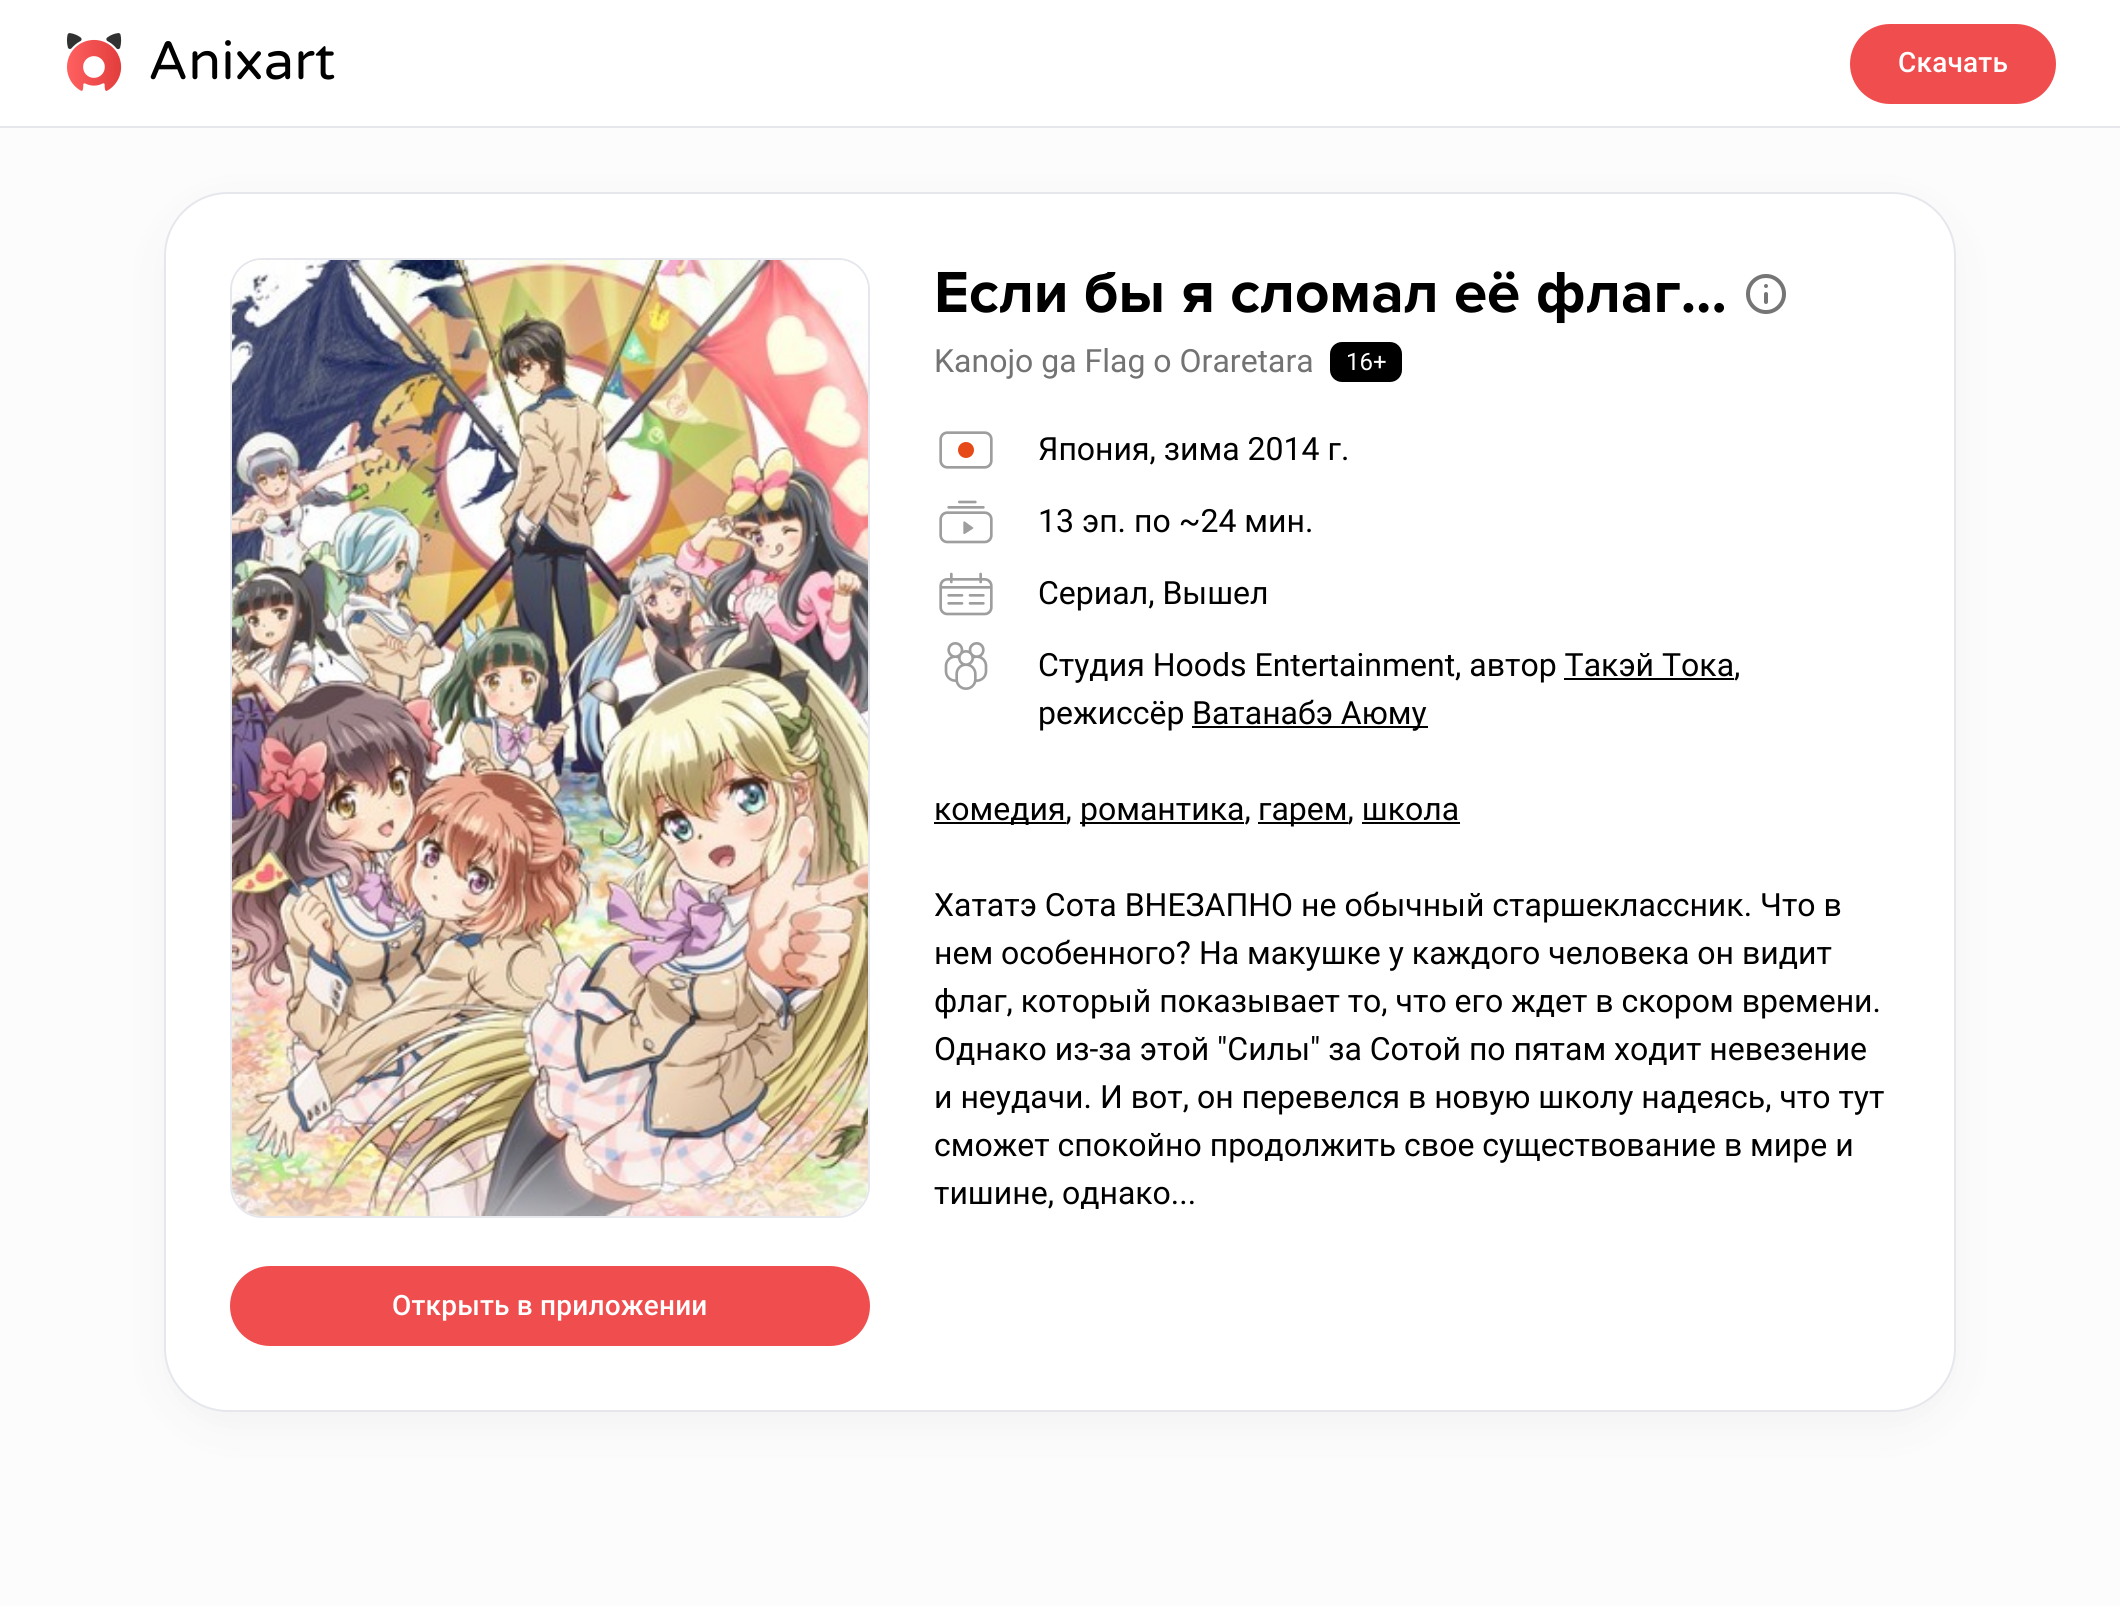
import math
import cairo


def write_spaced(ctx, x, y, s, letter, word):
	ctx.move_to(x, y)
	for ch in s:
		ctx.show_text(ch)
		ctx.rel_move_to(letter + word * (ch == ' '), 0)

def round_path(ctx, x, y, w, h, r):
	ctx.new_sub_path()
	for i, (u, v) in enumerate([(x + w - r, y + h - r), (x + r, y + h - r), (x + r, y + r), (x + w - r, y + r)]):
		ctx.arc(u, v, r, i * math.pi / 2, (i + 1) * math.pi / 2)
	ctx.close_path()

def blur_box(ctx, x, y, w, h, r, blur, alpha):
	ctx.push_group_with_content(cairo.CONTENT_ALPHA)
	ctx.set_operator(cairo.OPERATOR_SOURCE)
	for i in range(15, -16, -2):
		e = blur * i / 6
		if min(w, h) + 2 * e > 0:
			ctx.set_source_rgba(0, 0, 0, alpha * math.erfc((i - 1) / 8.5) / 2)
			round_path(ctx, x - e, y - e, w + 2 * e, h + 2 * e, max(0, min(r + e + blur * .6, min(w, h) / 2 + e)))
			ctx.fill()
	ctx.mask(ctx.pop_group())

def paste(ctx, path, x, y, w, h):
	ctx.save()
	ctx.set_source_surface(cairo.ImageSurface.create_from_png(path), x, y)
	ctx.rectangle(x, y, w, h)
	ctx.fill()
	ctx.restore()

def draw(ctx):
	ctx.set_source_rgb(0.988, 0.988, 0.988)
	ctx.paint()
	ctx.set_source_rgb(1, 1, 1)
	ctx.rectangle(0, 0, 2120, 126)
	ctx.fill()
	ctx.set_source_rgb(0.898, 0.906, 0.922)
	ctx.rectangle(0, 126, 2120, 2)
	ctx.fill()
	paste(ctx, 'media/1.png', 66, 33, 56, 58)
	ctx.select_font_face('Varela Round')
	ctx.set_font_size(54)
	ctx.set_source_rgb(0, 0, 0)
	ctx.move_to(148, 79)
	ctx.show_text('Anixart')
	ctx.set_source_rgb(0.941, 0.306, 0.306)
	round_path(ctx, 1850, 24, 206, 80, 40)
	ctx.fill()
	ctx.select_font_face('Roboto Medium')
	ctx.set_font_size(28)
	ctx.set_source_rgb(1, 1, 1)
	write_spaced(ctx, 1898, 72, 'Скачать', 0.2, 0)
	ctx.set_source_rgb(0.2, 0.2, 0.2)
	blur_box(ctx, 164, 206, 1792, 1220, 64, 21, 0.05)
	ctx.set_source_rgb(1, 1, 1)
	round_path(ctx, 165, 193, 1790, 1218, 63)
	ctx.fill_preserve()
	ctx.set_source_rgb(0.898, 0.906, 0.922)
	ctx.stroke()
	ctx.select_font_face('Proxima Nova', cairo.FONT_SLANT_NORMAL, cairo.FONT_WEIGHT_BOLD)
	ctx.set_font_size(60)
	ctx.set_source_rgb(0, 0, 0)
	ctx.move_to(934, 312)
	ctx.show_text('Если бы я сломал её флаг...')
	paste(ctx, 'media/2.png', 1746, 274, 40, 40)
	ctx.select_font_face('Roboto')
	ctx.set_font_size(32)
	ctx.set_source_rgb(0.451, 0.451, 0.451)
	ctx.move_to(934, 372)
	ctx.show_text('Kanojo ga Flag o Oraretara')
	ctx.set_source_rgb(0, 0, 0)
	round_path(ctx, 1330, 342, 72, 40, 12)
	ctx.fill()
	ctx.set_font_size(24)
	ctx.set_source_rgb(1, 1, 1)
	ctx.move_to(1346, 370)
	ctx.show_text('16+')
	paste(ctx, 'media/3.png', 939, 431, 54, 38)
	ctx.set_font_size(32)
	ctx.set_source_rgb(0, 0, 0)
	ctx.move_to(1038, 460)
	ctx.show_text('Япония, зима 2014 г.')
	paste(ctx, 'media/4.png', 939, 500, 54, 44)
	ctx.move_to(1038, 532)
	ctx.show_text('13 эп. по ~24 мин.')
	paste(ctx, 'media/5.png', 939, 572, 54, 44)
	ctx.move_to(1038, 604)
	ctx.show_text('Сериал, Вышел')
	paste(ctx, 'media/6.png', 944, 642, 44, 48)
	ctx.move_to(1038, 676)
	ctx.show_text('Студия Hoods Entertainment, автор Такэй Тока,')
	ctx.rectangle(1564, 678, 170, 2)
	ctx.fill()
	ctx.move_to(1038, 724)
	ctx.show_text('режиссёр')
	ctx.rectangle(1192, 726, 236, 2)
	ctx.fill()
	ctx.move_to(1192, 724)
	ctx.show_text('Ватанабэ Аюму')
	ctx.rectangle(934, 822, 132, 2)
	ctx.fill()
	ctx.move_to(934, 820)
	ctx.show_text('комедия,')
	ctx.rectangle(1080, 822, 164, 2)
	ctx.fill()
	ctx.move_to(1080, 820)
	ctx.show_text('романтика,')
	ctx.rectangle(1258, 822, 90, 2)
	ctx.fill()
	ctx.move_to(1258, 820)
	ctx.show_text('гарем, школа')
	ctx.rectangle(1362, 822, 98, 2)
	ctx.fill()
	for x, y, s in [
		(934, 916, 'Хататэ Сота ВНЕЗАПНО не обычный старшеклассник. Что в'),
		(934, 964, 'нем особенного? На макушке у каждого человека он видит'),
		(934, 1012, 'флаг, который показывает то, что его ждет в скором времени.'),
		(934, 1060, 'Однако из-за этой "Силы" за Сотой по пятам ходит невезение'),
		(934, 1108, 'и неудачи. И вот, он перевелся в новую школу надеясь, что тут'),
		(934, 1156, 'сможет спокойно продолжить свое существование в мире и'),
		(934, 1204, 'тишине, однако...'),
	]:
		ctx.move_to(x, y)
		ctx.show_text(s)
	round_path(ctx, 231, 259, 638, 958, 31)
	ctx.set_source_rgb(0.898, 0.906, 0.922)
	ctx.stroke()
	paste(ctx, 'media/7.png', 232, 260, 636, 956)
	ctx.set_source_rgb(0.941, 0.306, 0.306)
	round_path(ctx, 230, 1266, 640, 80, 40)
	ctx.fill()
	ctx.select_font_face('Roboto Medium')
	ctx.set_font_size(28)
	ctx.set_source_rgb(1, 1, 1)
	write_spaced(ctx, 392, 1315, 'Открыть в приложении', 0.2, 0)


surface = cairo.ImageSurface(cairo.FORMAT_RGB24, 2120, 1606)
ctx = cairo.Context(surface)
options = cairo.FontOptions()
options.set_hint_metrics(cairo.HINT_METRICS_OFF)
options.set_hint_style(cairo.HINT_STYLE_NONE)
ctx.set_font_options(options)
ctx.set_miter_limit(4)
draw(ctx)
surface.write_to_png('image.png')
